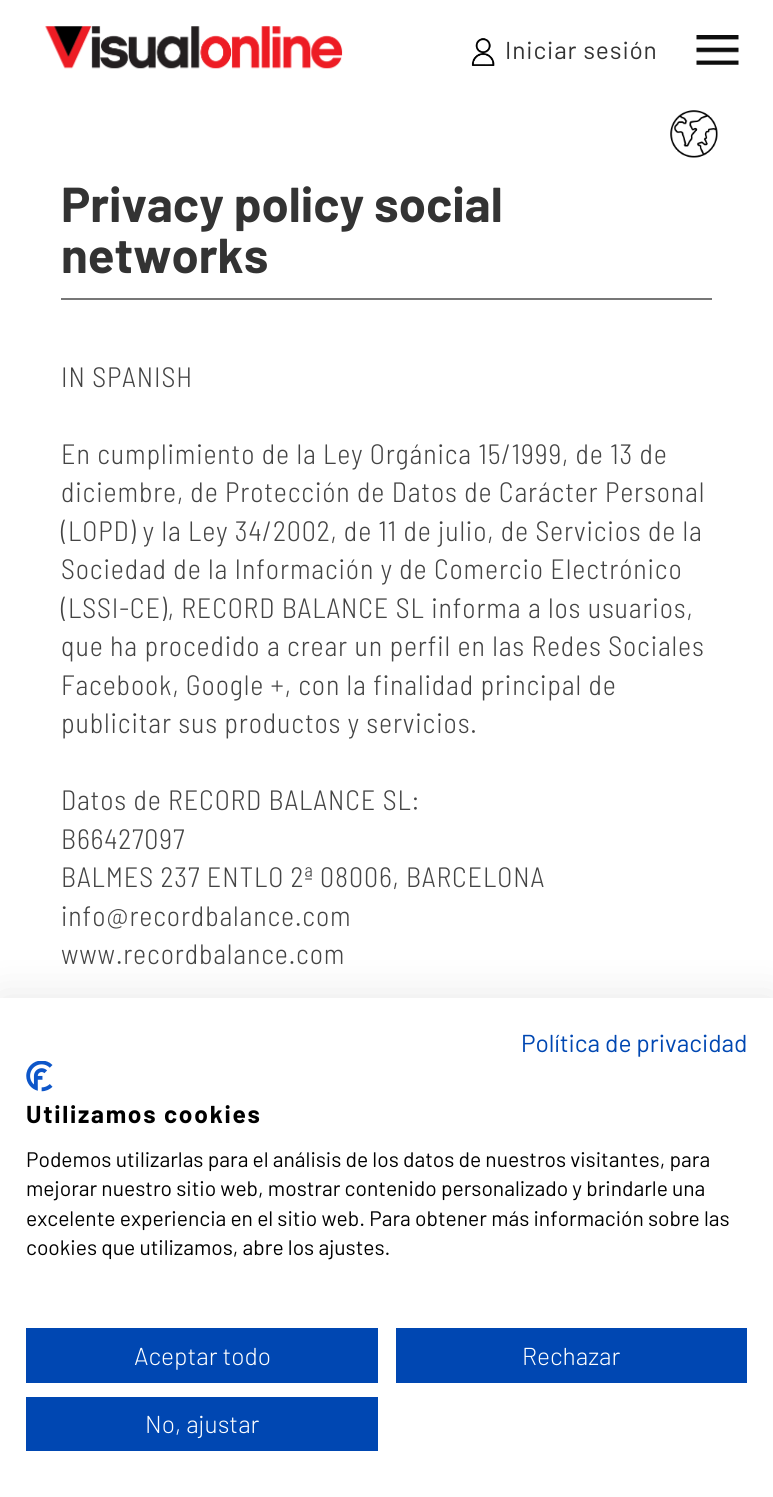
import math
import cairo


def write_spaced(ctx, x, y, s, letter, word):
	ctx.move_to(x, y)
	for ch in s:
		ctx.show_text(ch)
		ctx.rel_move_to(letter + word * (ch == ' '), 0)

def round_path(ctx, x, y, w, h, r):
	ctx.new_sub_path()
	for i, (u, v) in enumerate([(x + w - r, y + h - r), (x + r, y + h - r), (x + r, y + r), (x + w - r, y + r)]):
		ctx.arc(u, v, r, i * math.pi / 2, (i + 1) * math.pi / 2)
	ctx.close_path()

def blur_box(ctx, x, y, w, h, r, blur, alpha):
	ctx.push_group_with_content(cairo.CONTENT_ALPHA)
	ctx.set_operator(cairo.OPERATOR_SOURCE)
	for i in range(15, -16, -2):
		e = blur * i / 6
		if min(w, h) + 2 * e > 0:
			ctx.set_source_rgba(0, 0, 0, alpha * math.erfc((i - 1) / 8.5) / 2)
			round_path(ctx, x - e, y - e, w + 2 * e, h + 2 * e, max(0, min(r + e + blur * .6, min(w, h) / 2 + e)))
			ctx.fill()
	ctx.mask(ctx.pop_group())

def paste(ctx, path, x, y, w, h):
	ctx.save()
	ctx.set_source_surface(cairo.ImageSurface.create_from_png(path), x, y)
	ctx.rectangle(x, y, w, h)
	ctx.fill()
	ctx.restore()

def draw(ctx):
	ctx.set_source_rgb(1, 1, 1)
	ctx.paint()
	paste(ctx, 'media/1.png', 45, 26, 298, 43)
	paste(ctx, 'media/2.png', 471, 38, 24, 28)
	ctx.select_font_face('Barlow')
	ctx.set_font_size(24.5)
	ctx.set_source_rgb(0.2, 0.2, 0.2)
	write_spaced(ctx, 505, 59, 'Iniciar sesión', 0.88, 0)
	paste(ctx, 'media/3.png', 696, 35, 43, 30)
	paste(ctx, 'media/4.png', 670, 110, 48, 48)
	ctx.set_source_rgb(0.467, 0.467, 0.467)
	ctx.rectangle(61, 298, 651, 2)
	ctx.fill()
	ctx.select_font_face('Barlow', cairo.FONT_SLANT_NORMAL, cairo.FONT_WEIGHT_BOLD)
	ctx.set_font_size(49)
	ctx.set_source_rgb(0.2, 0.2, 0.2)
	ctx.move_to(61, 222)
	ctx.show_text('Privacy policy social')
	ctx.move_to(61, 273)
	ctx.show_text('networks')
	ctx.select_font_face('Barlow Semi Condensed Light')
	ctx.set_font_size(28)
	ctx.set_source_rgb(0.267, 0.267, 0.267)
	for x, y, s in [
		(61, 387, 'IN SPANISH'),
		(61, 464, 'En cumplimiento de la Ley Orgánica 15/1999, de 13 de'),
		(61, 502, 'diciembre, de Protección de Datos de Carácter Personal'),
		(61, 541, '(LOPD) y la Ley 34/2002, de 11 de julio, de Servicios de la'),
		(61, 579, 'Sociedad de la Información y de Comercio Electrónico'),
		(61, 618, '(LSSI-CE), RECORD BALANCE SL informa a los usuarios,'),
		(61, 656, 'que ha procedido a crear un perfil en las Redes Sociales'),
		(61, 695, 'Facebook, Google +, con la finalidad principal de'),
		(61, 733, 'publicitar sus productos y servicios.'),
		(61, 810, 'Datos de RECORD BALANCE SL:'),
		(61, 849, 'B66427097'),
		(61, 887, 'BALMES 237 ENTLO 2ª 08006, BARCELONA'),
		(61, 926, 'info@recordbalance.com'),
		(61, 964, 'www.recordbalance.com'),
	]:
		write_spaced(ctx, x, y, s, 0.88, 0)
	ctx.set_source_rgb(0, 0, 0)
	blur_box(ctx, 0, 998, 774, 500, 0, 21, 0.1)
	ctx.set_source_rgb(1, 1, 1)
	ctx.rectangle(0, 998, 773, 499)
	ctx.fill()
	ctx.select_font_face('Barlow')
	ctx.set_font_size(24.5)
	ctx.set_source_rgb(0, 0.278, 0.698)
	ctx.move_to(521, 1052)
	ctx.show_text('Política de privacidad')
	paste(ctx, 'media/5.png', 26, 1061, 27, 31)
	ctx.select_font_face('Barlow', cairo.FONT_SLANT_NORMAL, cairo.FONT_WEIGHT_BOLD)
	ctx.set_source_rgb(0, 0, 0)
	write_spaced(ctx, 26, 1123, 'Utilizamos cookies', 1.75, 0)
	ctx.select_font_face('Barlow')
	ctx.set_font_size(21)
	for x, y, s in [
		(26, 1167, 'Podemos utilizarlas para el análisis de los datos de nuestros visitantes, para'),
		(26, 1196, 'mejorar nuestro sitio web, mostrar contenido personalizado y brindarle una'),
		(26, 1226, 'excelente experiencia en el sitio web. Para obtener más información sobre las'),
		(26, 1255, 'cookies que utilizamos, abre los ajustes.'),
	]:
		ctx.move_to(x, y)
		ctx.show_text(s)
	ctx.set_source_rgb(0, 0.278, 0.698)
	ctx.rectangle(26, 1328, 352, 55)
	ctx.fill()
	ctx.select_font_face('Barlow Light')
	ctx.set_font_size(24.5)
	ctx.set_source_rgb(1, 1, 1)
	ctx.move_to(134, 1365)
	ctx.show_text('Aceptar todo')
	ctx.set_source_rgb(0, 0.278, 0.698)
	ctx.rectangle(396, 1328, 351, 55)
	ctx.fill()
	ctx.set_source_rgb(1, 1, 1)
	ctx.move_to(522, 1365)
	ctx.show_text('Rechazar')
	ctx.set_source_rgb(0, 0.278, 0.698)
	ctx.rectangle(26, 1397, 352, 54)
	ctx.fill()
	ctx.set_source_rgb(1, 1, 1)
	ctx.move_to(145, 1433)
	ctx.show_text('No, ajustar')


surface = cairo.ImageSurface(cairo.FORMAT_RGB24, 773, 1497)
ctx = cairo.Context(surface)
options = cairo.FontOptions()
options.set_hint_metrics(cairo.HINT_METRICS_OFF)
options.set_hint_style(cairo.HINT_STYLE_NONE)
ctx.set_font_options(options)
ctx.set_miter_limit(4)
draw(ctx)
surface.write_to_png('image.png')
